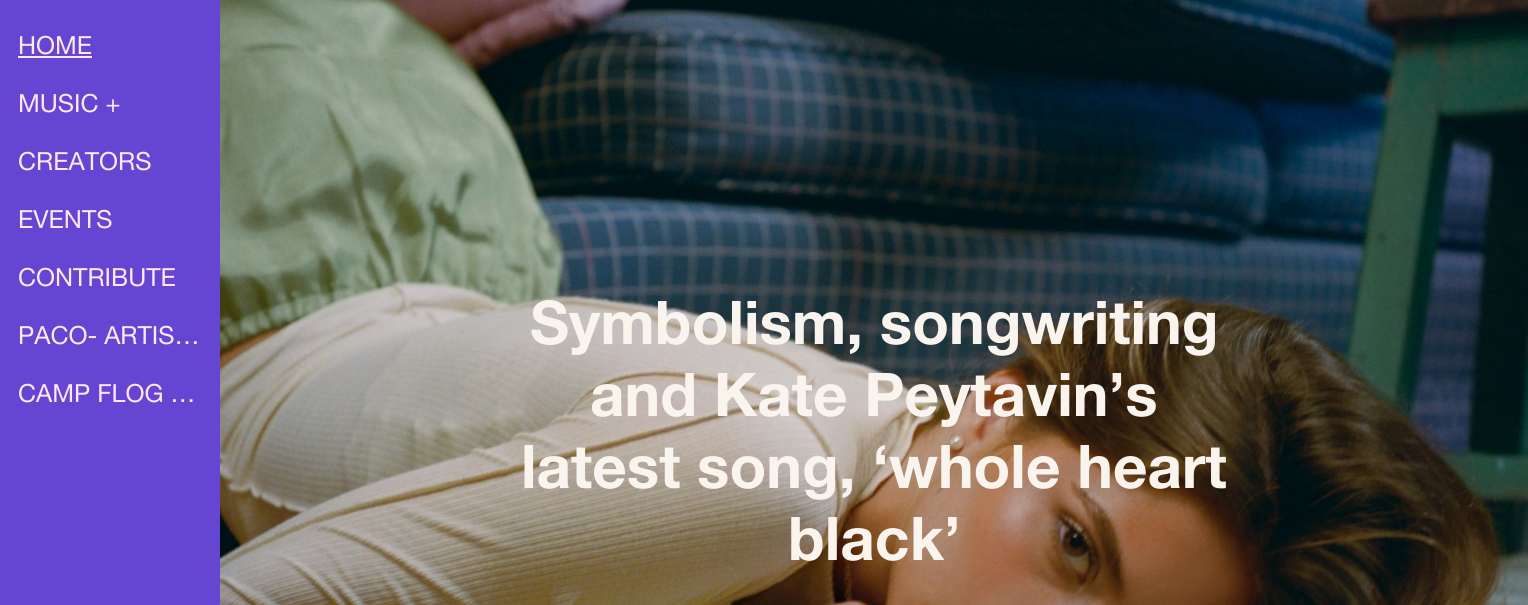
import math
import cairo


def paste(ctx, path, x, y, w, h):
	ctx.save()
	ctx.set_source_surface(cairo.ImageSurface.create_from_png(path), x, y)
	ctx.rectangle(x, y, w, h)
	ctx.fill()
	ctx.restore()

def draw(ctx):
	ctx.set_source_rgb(1, 1, 1)
	ctx.paint()
	ctx.set_source_rgb(0.392, 0.275, 0.827)
	ctx.rectangle(0, 0, 220, 605)
	ctx.fill()
	ctx.select_font_face('Helvetica Neue')
	ctx.set_font_size(25)
	ctx.set_source_rgb(1, 0.902, 0.941)
	ctx.move_to(18, 54)
	ctx.show_text('HOME')
	ctx.rectangle(18, 56, 74, 2)
	ctx.fill()
	for x, y, s in [
		(18, 112, 'MUSIC +'),
		(18, 170, 'CREATORS'),
		(18, 228, 'EVENTS'),
		(18, 286, 'CONTRIBUTE'),
		(18, 344, 'PACO- ARTIS…'),
		(18, 402, 'CAMP FLOG …'),
	]:
		ctx.move_to(x, y)
		ctx.show_text(s)
	paste(ctx, 'media/1.png', 220, 0, 1308, 605)
	ctx.select_font_face('Helvetica Neue', cairo.FONT_SLANT_NORMAL, cairo.FONT_WEIGHT_BOLD)
	ctx.set_font_size(60.2)
	ctx.set_source_rgb(0.976, 0.957, 0.933)
	for x, y, s in [
		(530, 344, 'Symbolism, songwriting'),
		(590, 416, 'and Kate Peytavin’s'),
		(521, 488, 'latest song, ‘whole heart'),
		(788, 560, 'black’'),
	]:
		ctx.move_to(x, y)
		ctx.show_text(s)


surface = cairo.ImageSurface(cairo.FORMAT_RGB24, 1528, 605)
ctx = cairo.Context(surface)
options = cairo.FontOptions()
options.set_hint_metrics(cairo.HINT_METRICS_OFF)
options.set_hint_style(cairo.HINT_STYLE_NONE)
ctx.set_font_options(options)
ctx.set_miter_limit(4)
draw(ctx)
surface.write_to_png('image.png')
